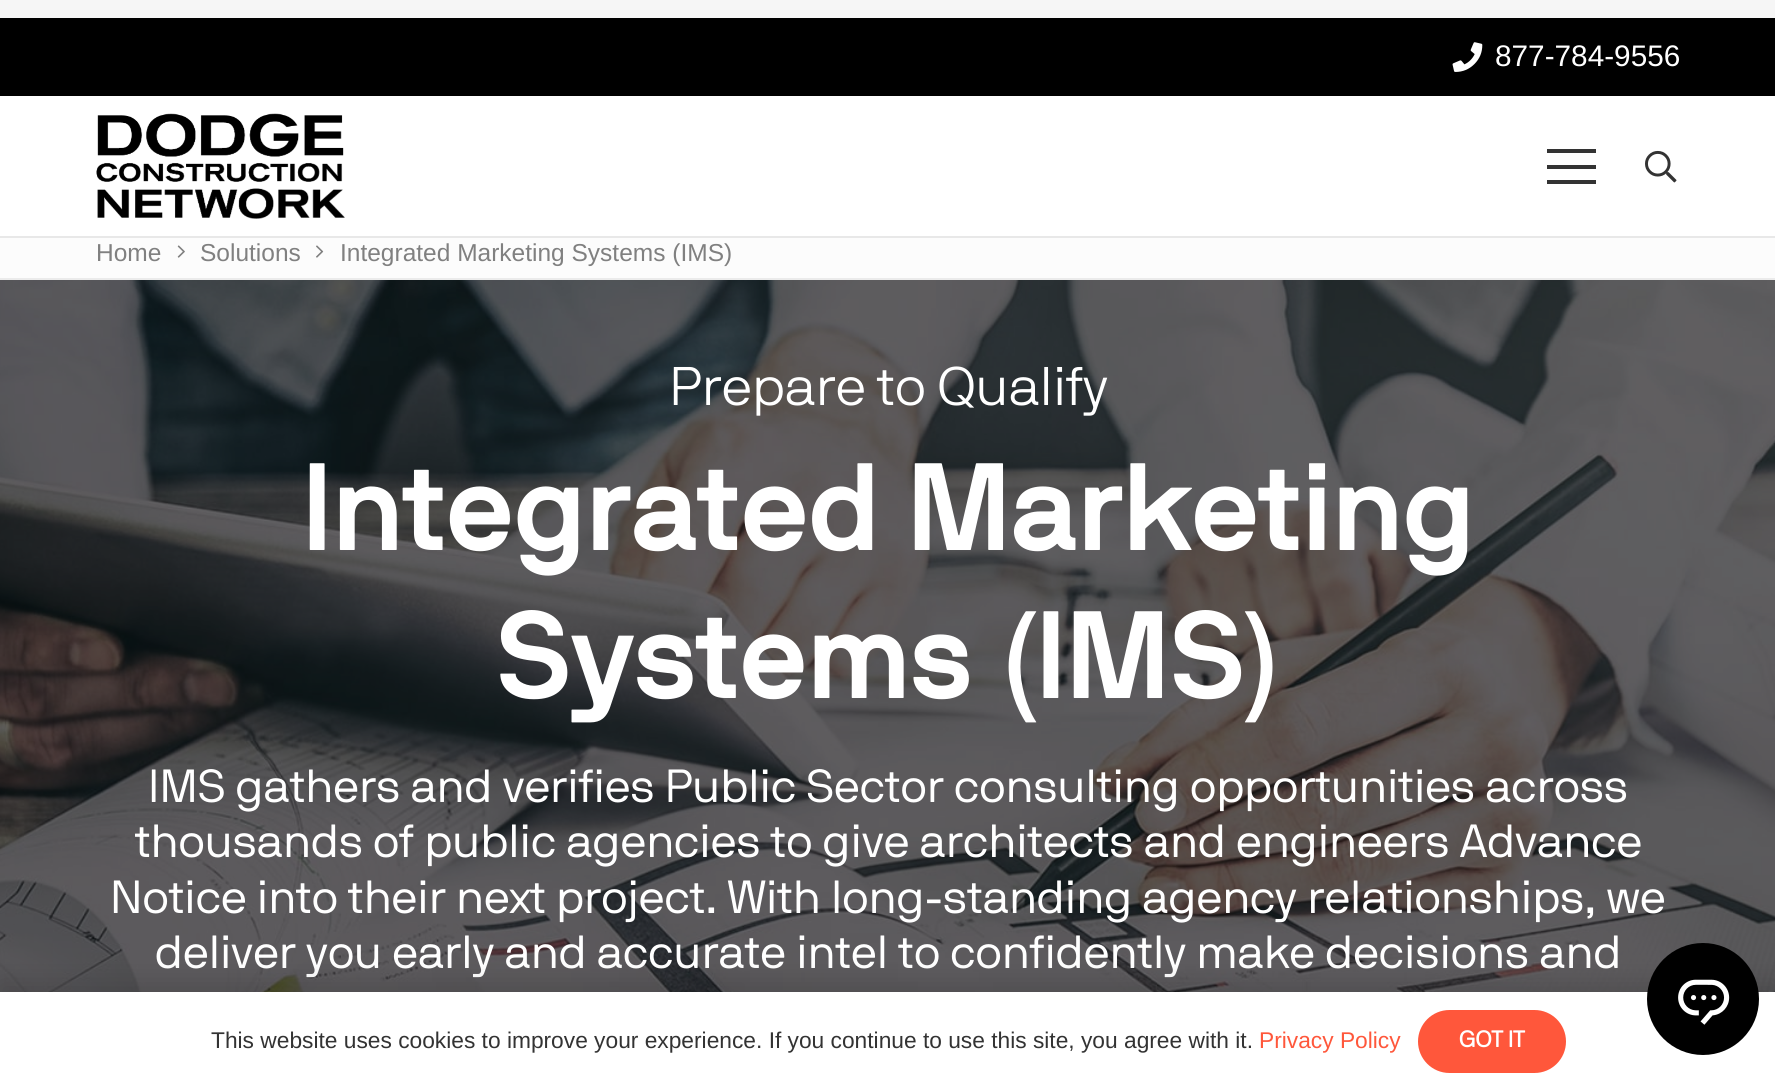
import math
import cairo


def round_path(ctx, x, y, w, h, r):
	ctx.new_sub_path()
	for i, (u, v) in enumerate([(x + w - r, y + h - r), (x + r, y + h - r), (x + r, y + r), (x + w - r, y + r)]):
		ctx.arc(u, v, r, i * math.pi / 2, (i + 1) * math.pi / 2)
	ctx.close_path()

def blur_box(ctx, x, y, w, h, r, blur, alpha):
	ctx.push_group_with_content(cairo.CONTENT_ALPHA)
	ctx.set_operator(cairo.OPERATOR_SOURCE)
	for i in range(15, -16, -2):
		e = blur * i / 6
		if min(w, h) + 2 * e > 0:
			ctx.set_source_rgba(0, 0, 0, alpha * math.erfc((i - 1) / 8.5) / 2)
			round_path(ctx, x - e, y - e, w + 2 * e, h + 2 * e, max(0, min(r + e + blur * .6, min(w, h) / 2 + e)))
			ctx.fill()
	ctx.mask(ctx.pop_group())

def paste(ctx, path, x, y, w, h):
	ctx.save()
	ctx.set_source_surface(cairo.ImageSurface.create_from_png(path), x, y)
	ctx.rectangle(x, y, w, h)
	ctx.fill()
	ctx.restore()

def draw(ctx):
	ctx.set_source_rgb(0.961, 0.961, 0.961)
	ctx.paint()
	ctx.set_source_rgb(0, 0, 0)
	ctx.rectangle(0, 18, 1775, 78)
	ctx.fill()
	paste(ctx, 'media/1.png', 1452, 42, 31, 30)
	ctx.select_font_face('Liberation Sans')
	ctx.set_font_size(29.75)
	ctx.set_source_rgb(1, 1, 1)
	ctx.move_to(1495, 66)
	ctx.show_text('877-784-9556')
	ctx.set_source_rgb(0.91, 0.91, 0.91)
	ctx.rectangle(0, 236, 1775, 2)
	ctx.fill()
	ctx.set_source_rgb(1, 1, 1)
	ctx.rectangle(0, 96, 1775, 140)
	ctx.fill()
	paste(ctx, 'media/2.png', 96, 113, 249, 106)
	ctx.set_source_rgb(0.2, 0.2, 0.2)
	ctx.rectangle(1547, 165, 49, 4)
	ctx.rectangle(1547, 149, 49, 4)
	ctx.rectangle(1547, 180, 49, 4)
	ctx.fill()
	paste(ctx, 'media/3.png', 1645, 150, 32, 33)
	ctx.set_source_rgb(0.988, 0.988, 0.988)
	ctx.rectangle(0, 238, 1775, 40)
	ctx.fill()
	ctx.set_source_rgb(0.918, 0.918, 0.918)
	ctx.rectangle(0, 278, 1775, 2)
	ctx.fill()
	ctx.set_font_size(24.5)
	ctx.set_source_rgb(0.502, 0.502, 0.502)
	ctx.move_to(96, 261)
	ctx.show_text('Home')
	paste(ctx, 'media/4.png', 177, 245, 8, 13)
	ctx.move_to(200, 261)
	ctx.show_text('Solutions')
	paste(ctx, 'media/5.png', 316, 245, 8, 13)
	ctx.move_to(340, 261)
	ctx.show_text('Integrated Marketing Systems (IMS)')
	paste(ctx, 'media/6.png', 0, 280, 1775, 712)
	ctx.select_font_face('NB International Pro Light')
	ctx.set_font_size(54)
	ctx.set_source_rgb(1, 1, 1)
	ctx.move_to(669, 405)
	ctx.show_text('Prepare to Qualify')
	ctx.select_font_face('NB International Pro', cairo.FONT_SLANT_NORMAL, cairo.FONT_WEIGHT_BOLD)
	ctx.set_font_size(123.25)
	ctx.move_to(302, 550)
	ctx.show_text('Integrated Marketing')
	ctx.move_to(496, 698)
	ctx.show_text('Systems (IMS)')
	ctx.select_font_face('NB International Pro')
	ctx.set_font_size(46.2)
	for x, y, s in [
		(148, 802, 'IMS gathers and verifies Public Sector consulting opportunities across'),
		(135, 857, 'thousands of public agencies to give architects and engineers Advance'),
		(110, 913, 'Notice into their next project. With long-standing agency relationships, we'),
		(155, 968, 'deliver you early and accurate intel to confidently make decisions and'),
	]:
		ctx.move_to(x, y)
		ctx.show_text(s)
	ctx.set_source_rgb(0, 0, 0)
	blur_box(ctx, 0, 984, 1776, 98, 0, 13, 0.15)
	ctx.set_source_rgb(1, 1, 1)
	ctx.rectangle(0, 992, 1775, 97)
	ctx.fill()
	ctx.select_font_face('Liberation Sans')
	ctx.set_font_size(22.75)
	ctx.set_source_rgb(0.2, 0.2, 0.2)
	ctx.move_to(211, 1048)
	ctx.show_text('This website uses cookies to improve your experience. If you continue to use this site, you agree with it.')
	ctx.set_source_rgb(1, 0.341, 0.231)
	ctx.move_to(1259, 1048)
	ctx.show_text('Privacy Policy')
	round_path(ctx, 1418, 1010, 148, 63, 31.5)
	ctx.fill()
	ctx.select_font_face('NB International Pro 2', cairo.FONT_SLANT_NORMAL, cairo.FONT_WEIGHT_BOLD)
	ctx.set_source_rgb(1, 1, 1)
	ctx.move_to(1459, 1047)
	ctx.show_text('GOT IT')
	ctx.set_source_rgb(0, 0, 0)
	ctx.new_path()
	ctx.arc(1703, 999, 56, 0, 2 * math.pi)
	ctx.fill()
	paste(ctx, 'media/7.png', 1678, 979, 52, 46)


surface = cairo.ImageSurface(cairo.FORMAT_RGB24, 1775, 1089)
ctx = cairo.Context(surface)
options = cairo.FontOptions()
options.set_hint_metrics(cairo.HINT_METRICS_OFF)
options.set_hint_style(cairo.HINT_STYLE_NONE)
ctx.set_font_options(options)
ctx.set_miter_limit(4)
draw(ctx)
surface.write_to_png('image.png')
